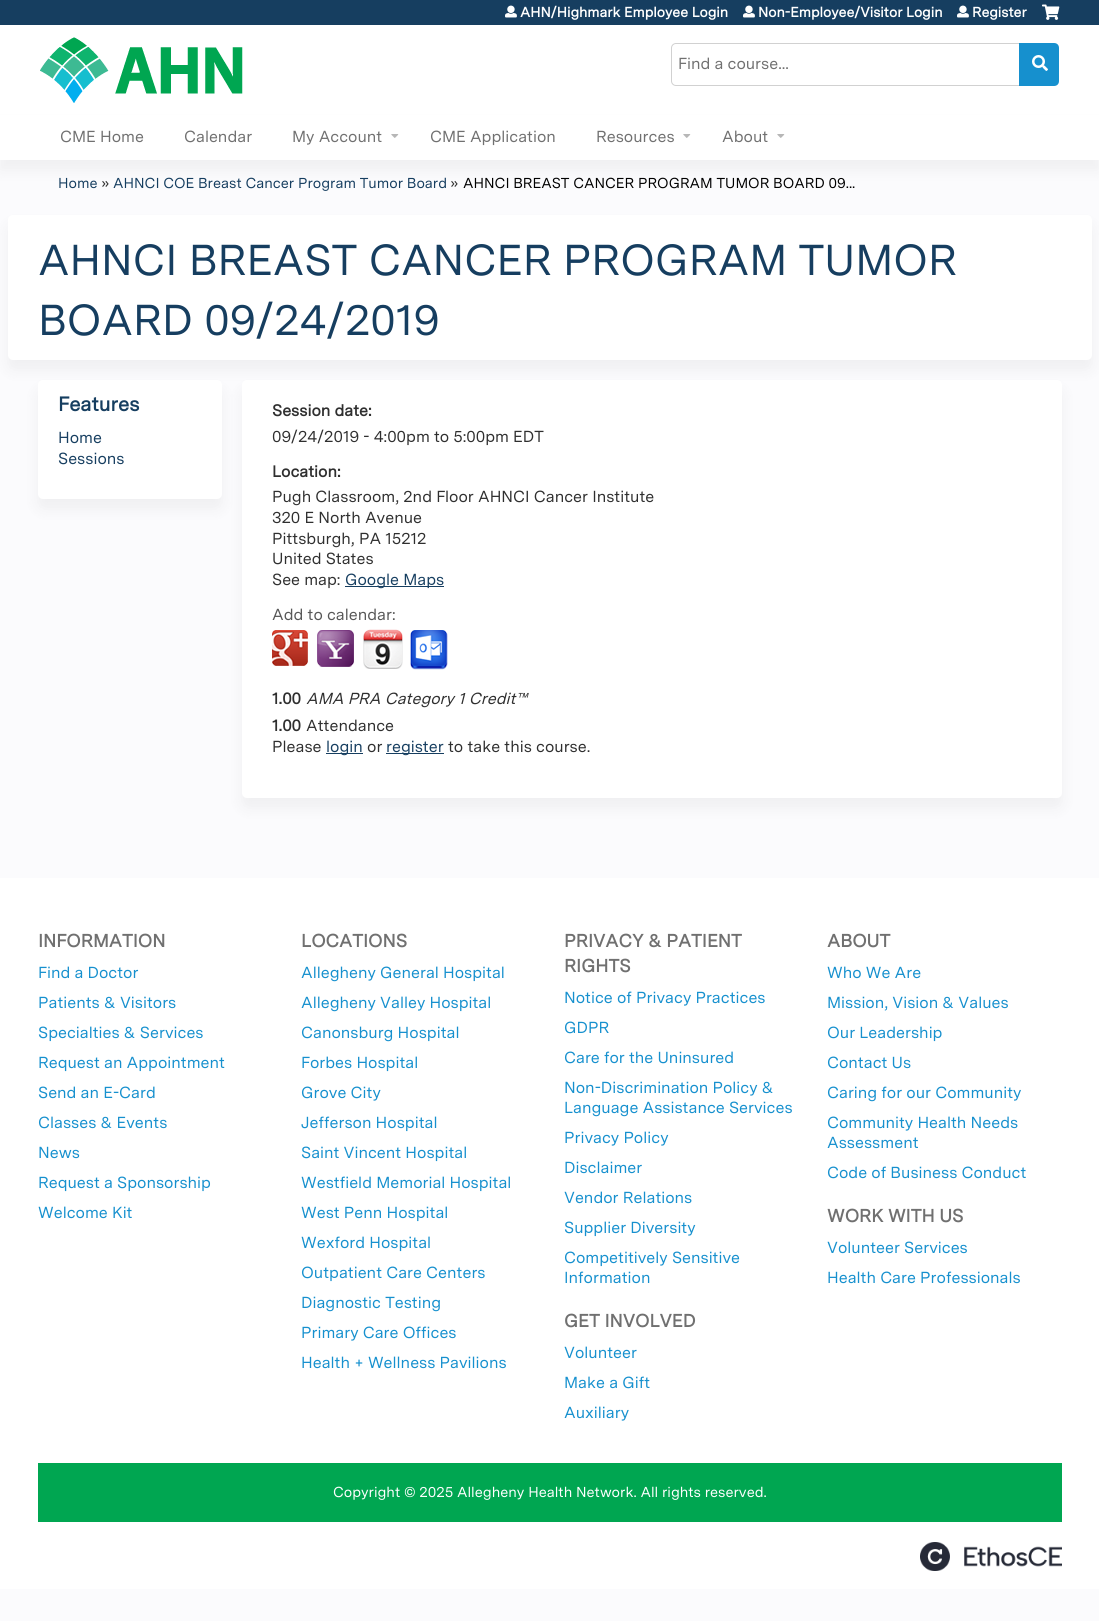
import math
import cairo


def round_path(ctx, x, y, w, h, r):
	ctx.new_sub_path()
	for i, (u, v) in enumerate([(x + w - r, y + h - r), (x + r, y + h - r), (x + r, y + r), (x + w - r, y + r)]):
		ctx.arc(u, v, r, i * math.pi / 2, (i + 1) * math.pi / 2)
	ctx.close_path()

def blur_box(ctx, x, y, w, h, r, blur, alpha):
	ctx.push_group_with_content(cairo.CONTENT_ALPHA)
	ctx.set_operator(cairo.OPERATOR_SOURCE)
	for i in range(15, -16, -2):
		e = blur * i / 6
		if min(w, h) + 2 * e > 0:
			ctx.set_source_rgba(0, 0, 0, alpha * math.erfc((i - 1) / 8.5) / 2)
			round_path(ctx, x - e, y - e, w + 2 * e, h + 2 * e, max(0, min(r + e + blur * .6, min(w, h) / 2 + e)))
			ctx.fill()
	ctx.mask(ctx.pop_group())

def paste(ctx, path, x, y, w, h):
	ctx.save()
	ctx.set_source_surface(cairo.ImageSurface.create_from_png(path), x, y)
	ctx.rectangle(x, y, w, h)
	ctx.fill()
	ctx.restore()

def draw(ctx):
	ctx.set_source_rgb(0.984, 0.984, 0.992)
	ctx.paint()
	ctx.set_source_rgb(1, 1, 1)
	ctx.rectangle(0, 25, 1099, 90)
	ctx.fill()
	ctx.set_source_rgb(0.086, 0.243, 0.376)
	ctx.rectangle(0, 0, 1099, 25)
	ctx.fill()
	paste(ctx, 'media/1.png', 40, 37, 203, 66)
	paste(ctx, 'media/2.png', 505, 5, 12, 13)
	ctx.select_font_face('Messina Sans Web', cairo.FONT_SLANT_NORMAL, cairo.FONT_WEIGHT_BOLD)
	ctx.set_font_size(14)
	ctx.set_source_rgb(1, 1, 1)
	ctx.move_to(520, 17)
	ctx.show_text('AHN/Highmark Employee Login')
	paste(ctx, 'media/2.png', 743, 5, 12, 13)
	ctx.move_to(758, 17)
	ctx.show_text('Non-Employee/Visitor Login')
	paste(ctx, 'media/2.png', 957, 5, 12, 13)
	ctx.move_to(972, 17)
	ctx.show_text('Register')
	paste(ctx, 'media/3.png', 1042, 4, 18, 16)
	ctx.new_path()
	ctx.move_to(676, 43.5)
	ctx.line_to(1019.5, 43.5)
	ctx.line_to(1019.5, 85.5)
	ctx.line_to(676, 85.5)
	ctx.curve_to(673.5, 85.5, 671.5, 83.5, 671.5, 81)
	ctx.line_to(671.5, 48)
	ctx.curve_to(671.5, 45.5, 673.5, 43.5, 676, 43.5)
	ctx.close_path()
	ctx.set_source_rgb(0.82, 0.82, 0.82)
	ctx.set_line_width(1)
	ctx.stroke()
	ctx.set_source_rgb(0.086, 0.565, 0.808)
	ctx.new_path()
	ctx.move_to(1019, 43)
	ctx.line_to(1054, 43)
	ctx.curve_to(1057, 43, 1059, 45, 1059, 48)
	ctx.line_to(1059, 81)
	ctx.curve_to(1059, 84, 1057, 86, 1054, 86)
	ctx.line_to(1019, 86)
	ctx.close_path()
	ctx.fill()
	ctx.select_font_face('Messina Sans Web')
	ctx.set_font_size(16)
	ctx.set_source_rgb(0.439, 0.439, 0.439)
	ctx.move_to(678, 69)
	ctx.show_text('Find a course...')
	paste(ctx, 'media/4.png', 1032, 55, 16, 16)
	ctx.set_source_rgb(0, 0, 0)
	blur_box(ctx, 0, 125, 1099, 45, 0, 7.5, 0.05)
	ctx.set_source_rgb(1, 1, 1)
	ctx.rectangle(0, 115, 1099, 45)
	ctx.fill()
	ctx.set_source_rgb(0.439, 0.439, 0.439)
	for x, y, s in [
		(60, 142, 'CME Home'),
		(184, 142, 'Calendar'),
		(292, 142, 'My Account'),
	]:
		ctx.move_to(x, y)
		ctx.show_text(s)
	paste(ctx, 'media/5.png', 391, 134, 8, 4)
	ctx.move_to(430, 142)
	ctx.show_text('CME Application')
	ctx.move_to(596, 142)
	ctx.show_text('Resources')
	paste(ctx, 'media/5.png', 683, 134, 8, 4)
	ctx.move_to(722, 142)
	ctx.show_text('About')
	paste(ctx, 'media/5.png', 777, 134, 8, 4)
	ctx.set_font_size(14.4)
	ctx.set_source_rgb(0.086, 0.243, 0.376)
	ctx.move_to(58, 188)
	ctx.show_text('Home')
	ctx.set_source_rgb(0.184, 0.184, 0.184)
	ctx.move_to(101, 188)
	ctx.show_text('»')
	ctx.set_source_rgb(0.086, 0.243, 0.376)
	ctx.move_to(113, 188)
	ctx.show_text('AHNCI COE Breast Cancer Program Tumor Board')
	ctx.set_source_rgb(0.184, 0.184, 0.184)
	ctx.move_to(450, 188)
	ctx.show_text('»')
	ctx.set_source_rgb(0, 0, 0)
	ctx.move_to(463, 188)
	ctx.show_text('AHNCI BREAST CANCER PROGRAM TUMOR BOARD 09...')
	ctx.set_source_rgb(0, 0, 0)
	blur_box(ctx, 8, 225, 1084, 145, 5, 7.5, 0.05)
	ctx.set_source_rgb(1, 1, 1)
	round_path(ctx, 8, 215, 1084, 145, 5)
	ctx.fill()
	ctx.set_font_size(43.2)
	ctx.set_source_rgb(0.086, 0.243, 0.376)
	ctx.move_to(38, 275)
	ctx.show_text('AHNCI BREAST CANCER PROGRAM TUMOR')
	ctx.move_to(38, 335)
	ctx.show_text('BOARD 09/24/2019')
	ctx.set_source_rgb(0, 0, 0)
	blur_box(ctx, 242, 390, 820, 418, 5, 7.5, 0.05)
	ctx.set_source_rgb(1, 1, 1)
	round_path(ctx, 242, 380, 820, 418, 5)
	ctx.fill()
	ctx.set_source_rgb(0, 0, 0)
	blur_box(ctx, 38, 390, 184, 119, 5, 7.5, 0.05)
	ctx.set_source_rgb(1, 1, 1)
	round_path(ctx, 38, 380, 184, 119, 5)
	ctx.fill()
	ctx.select_font_face('Messina Sans Web', cairo.FONT_SLANT_NORMAL, cairo.FONT_WEIGHT_BOLD)
	ctx.set_font_size(20)
	ctx.set_source_rgb(0.086, 0.243, 0.376)
	ctx.move_to(58, 411)
	ctx.show_text('Features')
	ctx.select_font_face('Messina Sans Web')
	ctx.set_font_size(16)
	ctx.move_to(58, 443)
	ctx.show_text('Home')
	ctx.move_to(58, 464)
	ctx.show_text('Sessions')
	ctx.select_font_face('Messina Sans Web', cairo.FONT_SLANT_NORMAL, cairo.FONT_WEIGHT_BOLD)
	ctx.set_source_rgb(0.184, 0.184, 0.184)
	ctx.move_to(272, 416)
	ctx.show_text('Session date:')
	ctx.select_font_face('Messina Sans Web')
	ctx.move_to(272, 442)
	ctx.show_text('09/24/2019 - 4:00pm to 5:00pm EDT')
	ctx.select_font_face('Messina Sans Web', cairo.FONT_SLANT_NORMAL, cairo.FONT_WEIGHT_BOLD)
	ctx.move_to(272, 477)
	ctx.show_text('Location:')
	ctx.select_font_face('Messina Sans Web')
	for x, y, s in [
		(272, 502, 'Pugh Classroom, 2nd Floor AHNCI Cancer Institute'),
		(272, 523, '320 E North Avenue'),
		(272, 544, 'Pittsburgh, PA 15212'),
		(272, 564, 'United States'),
		(272, 585, 'See map:'),
	]:
		ctx.move_to(x, y)
		ctx.show_text(s)
	ctx.set_source_rgb(0.086, 0.243, 0.376)
	ctx.rectangle(345, 586, 99, 1)
	ctx.fill()
	ctx.move_to(345, 585)
	ctx.show_text('Google Maps')
	ctx.set_source_rgb(0.341, 0.341, 0.341)
	ctx.move_to(272, 620)
	ctx.show_text('Add to calendar:')
	paste(ctx, 'media/6.png', 272, 630, 36, 36)
	paste(ctx, 'media/7.png', 317, 630, 37, 37)
	paste(ctx, 'media/8.png', 363, 629, 40, 40)
	paste(ctx, 'media/9.png', 410, 630, 38, 40)
	ctx.select_font_face('Messina Sans Web', cairo.FONT_SLANT_NORMAL, cairo.FONT_WEIGHT_BOLD)
	ctx.set_source_rgb(0.184, 0.184, 0.184)
	ctx.move_to(272, 704)
	ctx.show_text('1.00')
	ctx.select_font_face('Messina Sans Web', cairo.FONT_SLANT_ITALIC)
	ctx.move_to(306, 704)
	ctx.show_text('AMA PRA Category 1 Credit™')
	ctx.select_font_face('Messina Sans Web', cairo.FONT_SLANT_NORMAL, cairo.FONT_WEIGHT_BOLD)
	ctx.move_to(272, 731)
	ctx.show_text('1.00')
	ctx.select_font_face('Messina Sans Web')
	ctx.move_to(306, 731)
	ctx.show_text('Attendance')
	ctx.move_to(272, 752)
	ctx.show_text('Please')
	ctx.set_source_rgb(0.086, 0.243, 0.376)
	ctx.rectangle(326, 753, 37, 1)
	ctx.fill()
	ctx.move_to(326, 752)
	ctx.show_text('login')
	ctx.set_source_rgb(0.184, 0.184, 0.184)
	ctx.move_to(367, 752)
	ctx.show_text('or')
	ctx.set_source_rgb(0.086, 0.243, 0.376)
	ctx.rectangle(386, 753, 58, 1)
	ctx.fill()
	ctx.move_to(386, 752)
	ctx.show_text('register')
	ctx.set_source_rgb(0.184, 0.184, 0.184)
	ctx.move_to(448, 752)
	ctx.show_text('to take this course.')
	ctx.set_source_rgb(1, 1, 1)
	ctx.rectangle(0, 878, 1099, 711)
	ctx.fill()
	ctx.select_font_face('Messina Sans Web', cairo.FONT_SLANT_NORMAL, cairo.FONT_WEIGHT_BOLD)
	ctx.set_font_size(18)
	ctx.set_source_rgb(0.439, 0.439, 0.439)
	ctx.move_to(38, 947)
	ctx.show_text('INFORMATION')
	ctx.select_font_face('Messina Sans Web')
	ctx.set_font_size(16)
	ctx.set_source_rgb(0.086, 0.565, 0.808)
	for x, y, s in [
		(38, 978, 'Find a Doctor'),
		(38, 1008, 'Patients & Visitors'),
		(38, 1038, 'Specialties & Services'),
		(38, 1068, 'Request an Appointment'),
		(38, 1098, 'Send an E-Card'),
		(38, 1128, 'Classes & Events'),
		(38, 1158, 'News'),
		(38, 1188, 'Request a Sponsorship'),
		(38, 1218, 'Welcome Kit'),
	]:
		ctx.move_to(x, y)
		ctx.show_text(s)
	ctx.select_font_face('Messina Sans Web', cairo.FONT_SLANT_NORMAL, cairo.FONT_WEIGHT_BOLD)
	ctx.set_font_size(18)
	ctx.set_source_rgb(0.439, 0.439, 0.439)
	ctx.move_to(301, 947)
	ctx.show_text('LOCATIONS')
	ctx.select_font_face('Messina Sans Web')
	ctx.set_font_size(16)
	ctx.set_source_rgb(0.086, 0.565, 0.808)
	for x, y, s in [
		(301, 978, 'Allegheny General Hospital'),
		(301, 1008, 'Allegheny Valley Hospital'),
		(301, 1038, 'Canonsburg Hospital'),
		(301, 1068, 'Forbes Hospital'),
		(301, 1098, 'Grove City'),
		(301, 1128, 'Jefferson Hospital'),
		(301, 1158, 'Saint Vincent Hospital'),
		(301, 1188, 'Westfield Memorial Hospital'),
		(301, 1218, 'West Penn Hospital'),
		(301, 1248, 'Wexford Hospital'),
		(301, 1278, 'Outpatient Care Centers'),
		(301, 1308, 'Diagnostic Testing'),
		(301, 1338, 'Primary Care Offices'),
		(301, 1368, 'Health + Wellness Pavilions'),
	]:
		ctx.move_to(x, y)
		ctx.show_text(s)
	ctx.select_font_face('Messina Sans Web', cairo.FONT_SLANT_NORMAL, cairo.FONT_WEIGHT_BOLD)
	ctx.set_font_size(18)
	ctx.set_source_rgb(0.439, 0.439, 0.439)
	ctx.move_to(564, 947)
	ctx.show_text('PRIVACY & PATIENT')
	ctx.move_to(564, 972)
	ctx.show_text('RIGHTS')
	ctx.select_font_face('Messina Sans Web')
	ctx.set_font_size(16)
	ctx.set_source_rgb(0.086, 0.565, 0.808)
	for x, y, s in [
		(564, 1003, 'Notice of Privacy Practices'),
		(564, 1033, 'GDPR'),
		(564, 1063, 'Care for the Uninsured'),
		(564, 1093, 'Non-Discrimination Policy &'),
		(564, 1113, 'Language Assistance Services'),
		(564, 1143, 'Privacy Policy'),
		(564, 1173, 'Disclaimer'),
		(564, 1203, 'Vendor Relations'),
		(564, 1233, 'Supplier Diversity'),
		(564, 1263, 'Competitively Sensitive'),
		(564, 1283, 'Information'),
	]:
		ctx.move_to(x, y)
		ctx.show_text(s)
	ctx.select_font_face('Messina Sans Web', cairo.FONT_SLANT_NORMAL, cairo.FONT_WEIGHT_BOLD)
	ctx.set_font_size(18)
	ctx.set_source_rgb(0.439, 0.439, 0.439)
	ctx.move_to(564, 1327)
	ctx.show_text('GET INVOLVED')
	ctx.select_font_face('Messina Sans Web')
	ctx.set_font_size(16)
	ctx.set_source_rgb(0.086, 0.565, 0.808)
	for x, y, s in [
		(564, 1358, 'Volunteer'),
		(564, 1388, 'Make a Gift'),
		(564, 1418, 'Auxiliary'),
	]:
		ctx.move_to(x, y)
		ctx.show_text(s)
	ctx.select_font_face('Messina Sans Web', cairo.FONT_SLANT_NORMAL, cairo.FONT_WEIGHT_BOLD)
	ctx.set_font_size(18)
	ctx.set_source_rgb(0.439, 0.439, 0.439)
	ctx.move_to(827, 947)
	ctx.show_text('ABOUT')
	ctx.select_font_face('Messina Sans Web')
	ctx.set_font_size(16)
	ctx.set_source_rgb(0.086, 0.565, 0.808)
	for x, y, s in [
		(827, 978, 'Who We Are'),
		(827, 1008, 'Mission, Vision & Values'),
		(827, 1038, 'Our Leadership'),
		(827, 1068, 'Contact Us'),
		(827, 1098, 'Caring for our Community'),
		(827, 1128, 'Community Health Needs'),
		(827, 1148, 'Assessment'),
		(827, 1178, 'Code of Business Conduct'),
	]:
		ctx.move_to(x, y)
		ctx.show_text(s)
	ctx.select_font_face('Messina Sans Web', cairo.FONT_SLANT_NORMAL, cairo.FONT_WEIGHT_BOLD)
	ctx.set_font_size(18)
	ctx.set_source_rgb(0.439, 0.439, 0.439)
	ctx.move_to(827, 1222)
	ctx.show_text('WORK WITH US')
	ctx.select_font_face('Messina Sans Web')
	ctx.set_font_size(16)
	ctx.set_source_rgb(0.086, 0.565, 0.808)
	ctx.move_to(827, 1253)
	ctx.show_text('Volunteer Services')
	ctx.move_to(827, 1283)
	ctx.show_text('Health Care Professionals')
	ctx.set_source_rgb(0, 0.651, 0.318)
	ctx.rectangle(38, 1463, 1024, 59)
	ctx.fill()
	ctx.set_font_size(14.4)
	ctx.set_source_rgb(1, 1, 1)
	ctx.move_to(333, 1497)
	ctx.show_text('Copyright © 2025 Allegheny Health Network. All rights reserved.')
	paste(ctx, 'media/10.png', 920, 1542, 142, 29)


surface = cairo.ImageSurface(cairo.FORMAT_RGB24, 1099, 1621)
ctx = cairo.Context(surface)
options = cairo.FontOptions()
options.set_hint_metrics(cairo.HINT_METRICS_OFF)
options.set_hint_style(cairo.HINT_STYLE_NONE)
ctx.set_font_options(options)
ctx.set_miter_limit(4)
draw(ctx)
surface.write_to_png('image.png')
